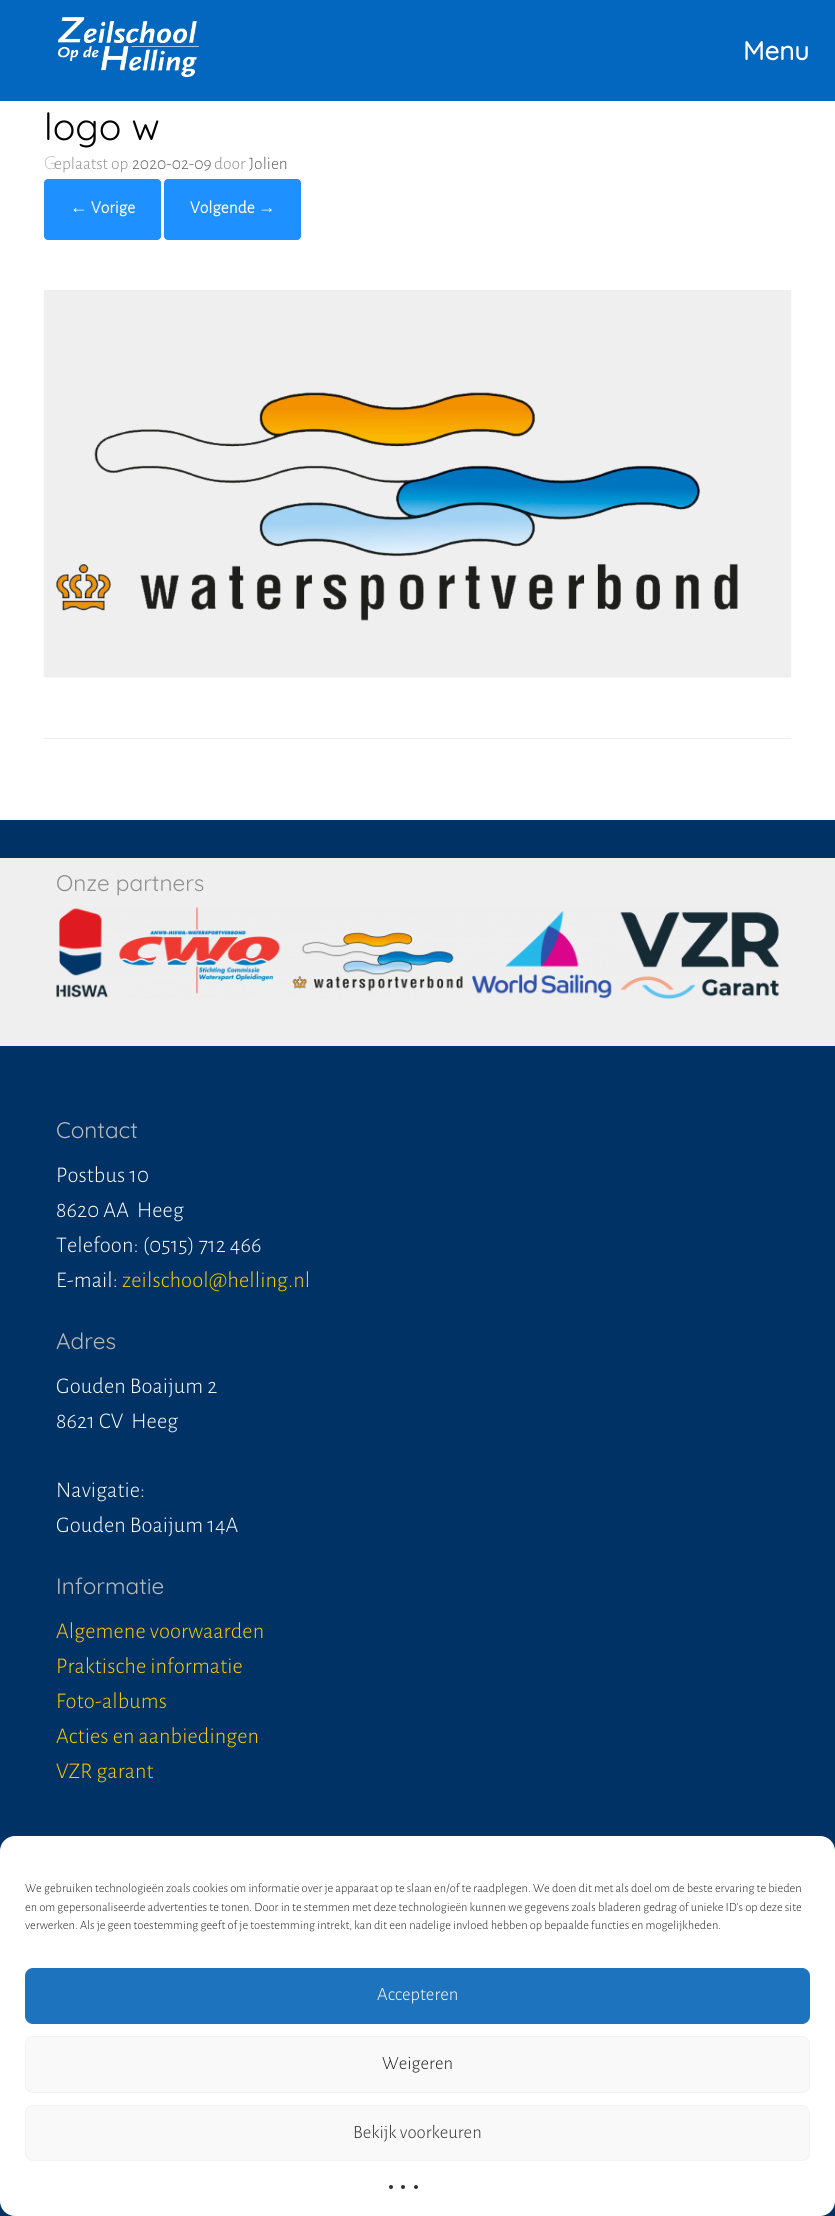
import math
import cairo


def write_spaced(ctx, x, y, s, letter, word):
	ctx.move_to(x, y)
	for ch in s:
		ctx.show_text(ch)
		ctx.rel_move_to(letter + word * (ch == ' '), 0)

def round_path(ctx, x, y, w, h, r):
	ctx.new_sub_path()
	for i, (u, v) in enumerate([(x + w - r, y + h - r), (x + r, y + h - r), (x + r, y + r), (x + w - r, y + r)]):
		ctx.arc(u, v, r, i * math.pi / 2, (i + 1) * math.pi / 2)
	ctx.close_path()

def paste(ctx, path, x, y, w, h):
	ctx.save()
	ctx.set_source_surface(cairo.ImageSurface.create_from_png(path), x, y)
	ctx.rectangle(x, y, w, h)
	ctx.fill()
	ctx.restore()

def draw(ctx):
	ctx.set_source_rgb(0, 0.196, 0.396)
	ctx.paint()
	ctx.set_source_rgb(0.012, 0.404, 0.749)
	ctx.rectangle(0, 0, 835, 101)
	ctx.fill()
	paste(ctx, 'media/1.png', 58, 17, 141, 61)
	ctx.select_font_face('Quicksand', cairo.FONT_SLANT_NORMAL, cairo.FONT_WEIGHT_BOLD)
	ctx.set_font_size(26)
	ctx.set_source_rgb(1, 1, 1)
	ctx.move_to(743, 60)
	ctx.show_text('Menu')
	ctx.rectangle(0, 101, 835, 719)
	ctx.fill()
	ctx.set_source_rgb(0.933, 0.933, 0.933)
	ctx.rectangle(44, 738, 747, 1)
	ctx.fill()
	ctx.select_font_face('Quicksand Light')
	ctx.set_font_size(37.5)
	ctx.set_source_rgb(0, 0, 0)
	ctx.move_to(44, 140)
	ctx.show_text('logo w')
	ctx.select_font_face('Noto Sans Thin')
	ctx.set_font_size(17.5)
	ctx.set_source_rgb(0.561, 0.561, 0.561)
	ctx.move_to(44, 169)
	ctx.show_text('G')
	ctx.select_font_face('Alegreya Sans Light')
	ctx.move_to(54, 169)
	ctx.show_text('eplaatst op')
	ctx.set_source_rgb(0.369, 0.369, 0.369)
	ctx.move_to(132, 169)
	ctx.show_text('2020-02-09')
	ctx.set_source_rgb(0.561, 0.561, 0.561)
	ctx.move_to(214, 169)
	ctx.show_text('door')
	ctx.set_source_rgb(0.369, 0.369, 0.369)
	ctx.move_to(249, 169)
	ctx.show_text('Jolien')
	ctx.set_source_rgb(0.118, 0.565, 1)
	round_path(ctx, 44.5, 179.5, 116, 60, 3.5)
	ctx.fill_preserve()
	ctx.set_line_width(1)
	ctx.stroke()
	ctx.select_font_face('Liberation Serif', cairo.FONT_SLANT_NORMAL, cairo.FONT_WEIGHT_BOLD)
	ctx.set_source_rgb(1, 1, 1)
	ctx.move_to(70, 213)
	ctx.show_text('←')
	ctx.select_font_face('Alegreya Sans', cairo.FONT_SLANT_NORMAL, cairo.FONT_WEIGHT_BOLD)
	ctx.move_to(91, 213)
	ctx.show_text('Vorige')
	ctx.set_source_rgb(0.118, 0.565, 1)
	round_path(ctx, 164.5, 179.5, 136, 60, 3.5)
	ctx.fill_preserve()
	ctx.stroke()
	ctx.set_source_rgb(1, 1, 1)
	ctx.move_to(190, 213)
	ctx.show_text('Volgende')
	ctx.select_font_face('Liberation Serif', cairo.FONT_SLANT_NORMAL, cairo.FONT_WEIGHT_BOLD)
	ctx.move_to(258, 213)
	ctx.show_text('→')
	paste(ctx, 'media/2.png', 43, 290, 749, 388)
	ctx.set_source_rgb(0.937, 0.937, 0.937)
	ctx.rectangle(0, 858, 835, 188)
	ctx.fill()
	ctx.select_font_face('Quicksand Light')
	ctx.set_font_size(22.5)
	ctx.set_source_rgb(0.561, 0.561, 0.561)
	ctx.move_to(56, 891)
	ctx.show_text('Onze partners')
	paste(ctx, 'media/3.png', 56, 907, 723, 92)
	ctx.set_source_rgb(0.729, 0.729, 0.729)
	ctx.move_to(56, 1138)
	ctx.show_text('Contact')
	ctx.select_font_face('Alegreya Sans Light')
	ctx.set_source_rgb(1, 1, 1)
	for x, y, s in [
		(56, 1182, 'Postbus 10'),
		(56, 1217, '8620 AA  Heeg'),
		(56, 1252, 'Telefoon: (0515) 712 466'),
		(56, 1287, 'E-mail:'),
	]:
		write_spaced(ctx, x, y, s, 0.1, 0)
	ctx.set_source_rgb(0.996, 0.796, 0)
	write_spaced(ctx, 122, 1287, 'zeilschool@helling.nl', 0.1, 0)
	ctx.select_font_face('Quicksand Light')
	ctx.set_source_rgb(0.729, 0.729, 0.729)
	ctx.move_to(56, 1349)
	ctx.show_text('Adres')
	ctx.select_font_face('Alegreya Sans Light')
	ctx.set_source_rgb(1, 1, 1)
	for x, y, s in [
		(56, 1393, 'Gouden Boaijum 2'),
		(56, 1428, '8621 CV  Heeg'),
		(56, 1497, 'Navigatie:'),
		(56, 1532, 'Gouden Boaijum 14A'),
	]:
		write_spaced(ctx, x, y, s, 0.1, 0)
	ctx.select_font_face('Quicksand Light')
	ctx.set_source_rgb(0.729, 0.729, 0.729)
	ctx.move_to(56, 1594)
	ctx.show_text('Informatie')
	ctx.select_font_face('Alegreya Sans Light')
	ctx.set_source_rgb(0.996, 0.796, 0)
	for x, y, s in [
		(56, 1638, 'Algemene voorwaarden'),
		(56, 1673, 'Praktische informatie'),
		(56, 1708, 'Foto-albums'),
		(56, 1743, 'Acties en aanbiedingen'),
		(56, 1778, 'VZR garant'),
	]:
		write_spaced(ctx, x, y, s, 0.1, 0)
	ctx.set_source_rgb(1, 1, 1)
	round_path(ctx, 0, 1836, 835, 380, 15)
	ctx.fill()
	ctx.set_font_size(12.5)
	ctx.set_source_rgb(0.133, 0.133, 0.133)
	for x, y, s in [
		(25, 1892, 'We gebruiken technologieën zoals cookies om informatie over je apparaat op te slaan en/of te raadplegen. We doen dit met als doel om de beste ervaring te bieden'),
		(25, 1911, 'en om gepersonaliseerde advertenties te tonen. Door in te stemmen met deze technologieën kunnen we gegevens zoals bladeren gedrag of unieke ID\'s op deze site'),
		(25, 1929, 'verwerken. Als je geen toestemming geeft of je toestemming intrekt, kan dit een nadelige invloed hebben op bepaalde functies en mogelijkheden.'),
	]:
		ctx.move_to(x, y)
		ctx.show_text(s)
	ctx.set_source_rgb(0.118, 0.451, 0.745)
	round_path(ctx, 25.5, 1968.5, 784, 55, 7.5)
	ctx.fill_preserve()
	ctx.stroke()
	ctx.set_font_size(18.75)
	ctx.set_source_rgb(1, 1, 1)
	ctx.move_to(377, 2000)
	ctx.show_text('Accepteren')
	ctx.set_source_rgb(0.976, 0.976, 0.976)
	round_path(ctx, 25.5, 2036.5, 784, 56, 7.5)
	ctx.fill_preserve()
	ctx.set_source_rgb(0.949, 0.949, 0.949)
	ctx.stroke()
	ctx.set_source_rgb(0.133, 0.133, 0.133)
	ctx.move_to(382, 2069)
	ctx.show_text('Weigeren')
	ctx.set_source_rgb(0.976, 0.976, 0.976)
	round_path(ctx, 25.5, 2105.5, 784, 55, 7.5)
	ctx.fill_preserve()
	ctx.set_source_rgb(0.949, 0.949, 0.949)
	ctx.stroke()
	ctx.set_source_rgb(0.2, 0.2, 0.2)
	ctx.move_to(353, 2138)
	ctx.show_text('Bekijk voorkeuren')
	ctx.new_path()
	ctx.arc(391, 2187, 2, 0, 2 * math.pi)
	ctx.fill()
	ctx.arc(403, 2187, 2, 0, 2 * math.pi)
	ctx.fill()
	ctx.arc(416, 2187, 2, 0, 2 * math.pi)
	ctx.fill()


surface = cairo.ImageSurface(cairo.FORMAT_RGB24, 835, 2216)
ctx = cairo.Context(surface)
options = cairo.FontOptions()
options.set_hint_metrics(cairo.HINT_METRICS_OFF)
options.set_hint_style(cairo.HINT_STYLE_NONE)
ctx.set_font_options(options)
ctx.set_miter_limit(4)
draw(ctx)
surface.write_to_png('image.png')
